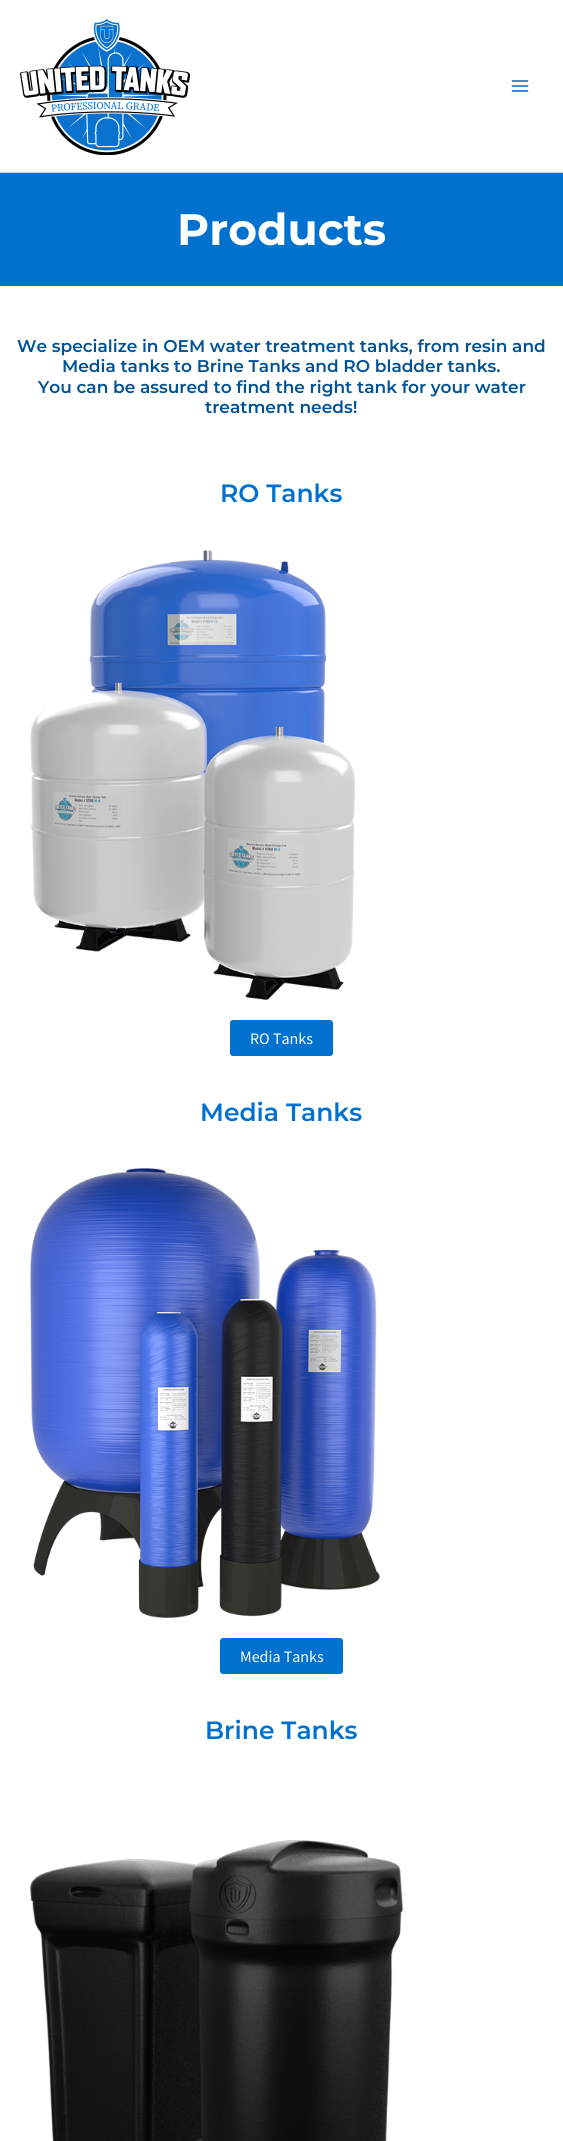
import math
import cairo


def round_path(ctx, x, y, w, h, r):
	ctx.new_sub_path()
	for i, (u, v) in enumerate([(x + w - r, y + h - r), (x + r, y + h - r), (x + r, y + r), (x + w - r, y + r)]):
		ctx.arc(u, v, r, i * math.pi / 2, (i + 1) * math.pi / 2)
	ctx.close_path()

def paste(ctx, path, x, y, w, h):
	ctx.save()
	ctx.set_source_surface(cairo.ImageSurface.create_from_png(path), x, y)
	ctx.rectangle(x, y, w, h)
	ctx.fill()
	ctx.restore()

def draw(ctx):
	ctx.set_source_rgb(1, 1, 1)
	ctx.paint()
	ctx.set_source_rgb(0.82, 0.835, 0.859)
	ctx.rectangle(0, 172, 563, 1)
	ctx.fill()
	paste(ctx, 'media/1.png', 20, 19, 170, 136)
	paste(ctx, 'media/2.png', 511, 80, 18, 12)
	ctx.set_source_rgb(0, 0.443, 0.808)
	ctx.rectangle(0, 173, 563, 113)
	ctx.fill()
	ctx.select_font_face('Montserrat', cairo.FONT_SLANT_NORMAL, cairo.FONT_WEIGHT_BOLD)
	ctx.set_font_size(44)
	ctx.set_source_rgb(1, 1, 1)
	ctx.move_to(177, 245)
	ctx.show_text('Products')
	ctx.select_font_face('Montserrat SemiBold')
	ctx.set_font_size(17)
	ctx.set_source_rgb(0, 0.322, 0.584)
	for x, y, s in [
		(17, 352, 'We specialize in OEM water treatment tanks, from resin and'),
		(62, 372, 'Media tanks to Brine Tanks and RO bladder tanks.'),
		(38, 393, 'You can be assured to find the right tank for your water'),
		(205, 413, 'treatment needs!'),
	]:
		ctx.move_to(x, y)
		ctx.show_text(s)
	ctx.set_font_size(25)
	ctx.set_source_rgb(0, 0.443, 0.808)
	ctx.move_to(220, 502)
	ctx.show_text('RO Tanks')
	paste(ctx, 'media/3.png', 30, 550, 325, 450)
	round_path(ctx, 230, 1020, 103, 36, 3)
	ctx.fill()
	ctx.select_font_face('Source Sans Pro')
	ctx.set_font_size(16)
	ctx.set_source_rgb(1, 1, 1)
	ctx.move_to(250, 1044)
	ctx.show_text('RO Tanks')
	ctx.select_font_face('Montserrat SemiBold')
	ctx.set_font_size(25)
	ctx.set_source_rgb(0, 0.443, 0.808)
	ctx.move_to(200, 1121)
	ctx.show_text('Media Tanks')
	paste(ctx, 'media/4.png', 30, 1168, 350, 450)
	round_path(ctx, 220, 1638, 123, 36, 3)
	ctx.fill()
	ctx.select_font_face('Source Sans Pro')
	ctx.set_font_size(16)
	ctx.set_source_rgb(1, 1, 1)
	ctx.move_to(240, 1662)
	ctx.show_text('Media Tanks')
	ctx.select_font_face('Montserrat SemiBold')
	ctx.set_font_size(25)
	ctx.set_source_rgb(0, 0.443, 0.808)
	ctx.move_to(205, 1739)
	ctx.show_text('Brine Tanks')
	paste(ctx, 'media/5.png', 30, 1840, 373, 301)


surface = cairo.ImageSurface(cairo.FORMAT_RGB24, 563, 2141)
ctx = cairo.Context(surface)
options = cairo.FontOptions()
options.set_hint_metrics(cairo.HINT_METRICS_OFF)
options.set_hint_style(cairo.HINT_STYLE_NONE)
ctx.set_font_options(options)
ctx.set_miter_limit(4)
draw(ctx)
surface.write_to_png('image.png')
